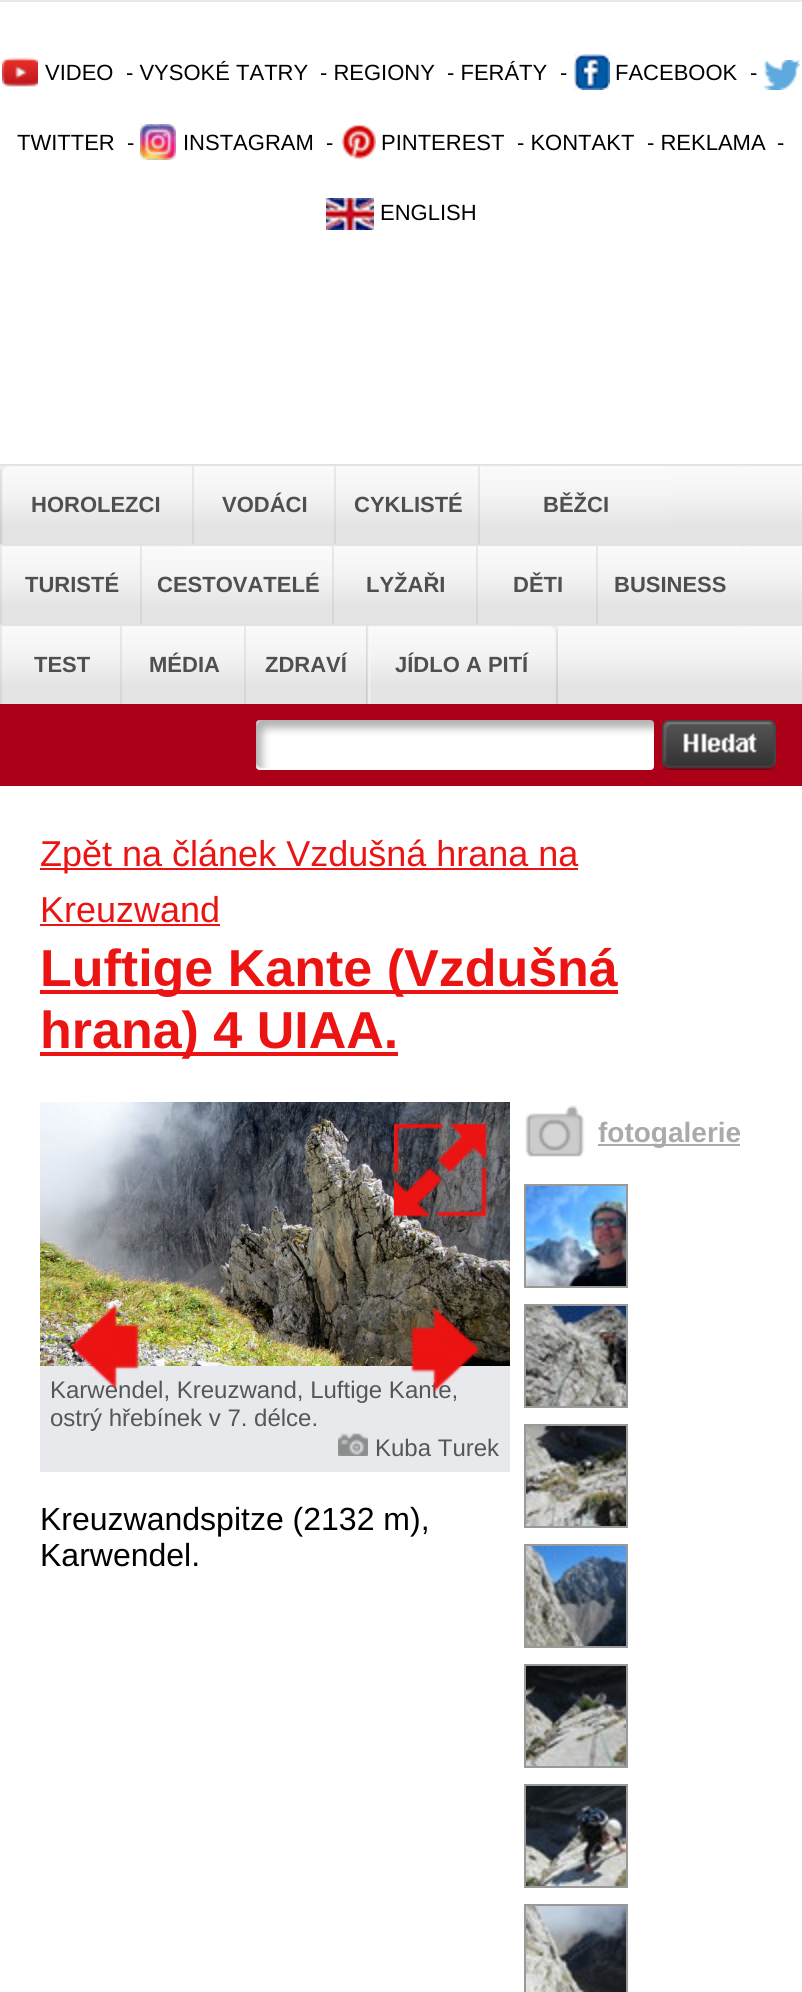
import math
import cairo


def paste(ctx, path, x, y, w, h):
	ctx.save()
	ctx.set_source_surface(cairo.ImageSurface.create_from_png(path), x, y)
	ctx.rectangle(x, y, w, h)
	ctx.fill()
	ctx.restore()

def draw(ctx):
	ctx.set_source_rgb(0.906, 0.914, 0.918)
	ctx.paint()
	ctx.set_source_rgb(1, 1, 1)
	ctx.rectangle(0, 2, 802, 1990)
	ctx.fill()
	paste(ctx, 'media/1.png', 2, 57, 36, 30)
	ctx.select_font_face('Liberation Sans')
	ctx.set_font_size(22)
	ctx.set_source_rgb(0, 0, 0)
	for x, y, s in [
		(45, 80, 'VIDEO'),
		(126, 80, '- VYSOKÉ TATRY'),
		(320, 80, '- REGIONY'),
		(447, 80, '- FERÁTY'),
		(560, 80, '-'),
	]:
		ctx.move_to(x, y)
		ctx.show_text(s)
	paste(ctx, 'media/2.png', 574, 54, 36, 36)
	ctx.move_to(615, 80)
	ctx.show_text('FACEBOOK')
	ctx.move_to(750, 80)
	ctx.show_text('-')
	paste(ctx, 'media/3.png', 764, 60, 36, 30)
	ctx.move_to(17, 150)
	ctx.show_text('TWITTER')
	ctx.move_to(127, 150)
	ctx.show_text('-')
	paste(ctx, 'media/4.png', 140, 124, 36, 36)
	ctx.move_to(183, 150)
	ctx.show_text('INSTAGRAM')
	ctx.move_to(326, 150)
	ctx.show_text('-')
	paste(ctx, 'media/5.png', 341, 124, 35, 36)
	for x, y, s in [
		(381, 150, 'PINTEREST'),
		(517, 150, '- KONTAKT'),
		(647, 150, '- REKLAMA'),
		(777, 150, '-'),
	]:
		ctx.move_to(x, y)
		ctx.show_text(s)
	paste(ctx, 'media/6.png', 326, 198, 48, 32)
	ctx.move_to(380, 220)
	ctx.show_text('ENGLISH')
	paste(ctx, 'media/7.png', 0, 464, 802, 240)
	paste(ctx, 'media/8.png', 0, 466, 6, 78)
	ctx.select_font_face('Liberation Sans', cairo.FONT_SLANT_NORMAL, cairo.FONT_WEIGHT_BOLD)
	ctx.set_source_rgb(0.314, 0.31, 0.31)
	ctx.move_to(31, 512)
	ctx.show_text('HOROLEZCI')
	paste(ctx, 'media/9.png', 192, 466, 2, 78)
	paste(ctx, 'media/10.png', 194, 466, 140, 78)
	ctx.move_to(222, 512)
	ctx.show_text('VODÁCI')
	paste(ctx, 'media/9.png', 334, 466, 2, 78)
	paste(ctx, 'media/11.png', 336, 466, 142, 78)
	ctx.move_to(354, 512)
	ctx.show_text('CYKLISTÉ')
	paste(ctx, 'media/12.png', 478, 466, 192, 78)
	paste(ctx, 'media/13.png', 480, 466, 190, 78)
	ctx.move_to(543, 512)
	ctx.show_text('BĚŽCI')
	paste(ctx, 'media/9.png', 0, 546, 2, 78)
	paste(ctx, 'media/14.png', 2, 546, 138, 78)
	ctx.move_to(25, 592)
	ctx.show_text('TURISTÉ')
	paste(ctx, 'media/12.png', 140, 546, 192, 78)
	paste(ctx, 'media/13.png', 142, 546, 190, 78)
	ctx.move_to(157, 592)
	ctx.show_text('CESTOVATELÉ')
	paste(ctx, 'media/9.png', 332, 546, 2, 78)
	paste(ctx, 'media/11.png', 334, 546, 142, 78)
	ctx.move_to(366, 592)
	ctx.show_text('LYŽAŘI')
	paste(ctx, 'media/9.png', 476, 546, 2, 78)
	paste(ctx, 'media/15.png', 478, 546, 118, 78)
	ctx.move_to(513, 592)
	ctx.show_text('DĚTI')
	paste(ctx, 'media/9.png', 596, 546, 2, 78)
	paste(ctx, 'media/11.png', 598, 546, 142, 78)
	ctx.move_to(614, 592)
	ctx.show_text('BUSINESS')
	paste(ctx, 'media/9.png', 0, 626, 2, 78)
	paste(ctx, 'media/15.png', 2, 626, 118, 78)
	ctx.move_to(34, 672)
	ctx.show_text('TEST')
	paste(ctx, 'media/9.png', 120, 626, 2, 78)
	paste(ctx, 'media/16.png', 122, 626, 122, 78)
	ctx.move_to(149, 672)
	ctx.show_text('MÉDIA')
	paste(ctx, 'media/9.png', 244, 626, 2, 78)
	paste(ctx, 'media/15.png', 246, 626, 118, 78)
	ctx.move_to(265, 672)
	ctx.show_text('ZDRAVÍ')
	paste(ctx, 'media/17.png', 366, 625, 192, 79)
	ctx.move_to(395, 672)
	ctx.show_text('JÍDLO A PITÍ')
	ctx.set_source_rgb(0.675, 0, 0.094)
	ctx.rectangle(0, 704, 802, 82)
	ctx.fill()
	paste(ctx, 'media/18.png', 256, 720, 398, 50)
	paste(ctx, 'media/19.png', 662, 720, 114, 50)
	ctx.set_source_rgb(0.925, 0.075, 0.075)
	ctx.rectangle(40, 868, 538, 2)
	ctx.fill()
	ctx.select_font_face('Liberation Sans')
	ctx.set_font_size(36)
	ctx.move_to(40, 866)
	ctx.show_text('Zpět na článek Vzdušná hrana na')
	ctx.move_to(40, 922)
	ctx.show_text('Kreuzwand')
	ctx.rectangle(40, 924, 180, 2)
	ctx.fill()
	ctx.rectangle(40, 990, 578, 4)
	ctx.fill()
	ctx.select_font_face('Liberation Sans', cairo.FONT_SLANT_NORMAL, cairo.FONT_WEIGHT_BOLD)
	ctx.set_font_size(52)
	ctx.move_to(40, 986)
	ctx.show_text('Luftige Kante (Vzdušná')
	ctx.rectangle(40, 1052, 358, 4)
	ctx.fill()
	ctx.move_to(40, 1048)
	ctx.show_text('hrana) 4 UIAA.')
	paste(ctx, 'media/20.png', 525, 1105, 60, 52)
	ctx.set_source_rgb(0.667, 0.667, 0.667)
	ctx.rectangle(598, 1144, 142, 2)
	ctx.fill()
	ctx.set_font_size(28)
	ctx.move_to(598, 1142)
	ctx.show_text('fotogalerie')
	ctx.rectangle(525, 1185, 102, 102)
	ctx.set_source_rgb(0.6, 0.6, 0.6)
	ctx.stroke()
	paste(ctx, 'media/21.png', 526, 1186, 100, 100)
	ctx.rectangle(525, 1305, 102, 102)
	ctx.stroke()
	paste(ctx, 'media/22.png', 526, 1306, 100, 100)
	ctx.rectangle(525, 1425, 102, 102)
	ctx.stroke()
	paste(ctx, 'media/23.png', 526, 1426, 100, 100)
	ctx.rectangle(525, 1545, 102, 102)
	ctx.stroke()
	paste(ctx, 'media/24.png', 526, 1546, 100, 100)
	ctx.rectangle(525, 1665, 102, 102)
	ctx.stroke()
	paste(ctx, 'media/25.png', 526, 1666, 100, 100)
	ctx.rectangle(525, 1785, 102, 102)
	ctx.stroke()
	paste(ctx, 'media/26.png', 526, 1786, 100, 100)
	ctx.rectangle(525, 1905, 102, 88)
	ctx.stroke()
	paste(ctx, 'media/27.png', 526, 1906, 100, 86)
	paste(ctx, 'media/28.png', 40, 1102, 470, 264)
	paste(ctx, 'media/29.png', 394, 1123, 94, 94)
	ctx.set_source_rgb(0.91, 0.914, 0.922)
	ctx.rectangle(40, 1366, 470, 106)
	ctx.fill()
	ctx.select_font_face('Liberation Sans')
	ctx.set_font_size(24)
	ctx.set_source_rgb(0.333, 0.337, 0.345)
	ctx.move_to(50, 1398)
	ctx.show_text('Karwendel, Kreuzwand, Luftige Kante,')
	paste(ctx, 'media/30.png', 69, 1303, 71, 86)
	paste(ctx, 'media/31.png', 410, 1307, 71, 86)
	ctx.move_to(50, 1426)
	ctx.show_text('ostrý hřebínek v 7. délce.')
	paste(ctx, 'media/32.png', 338, 1432, 30, 24)
	ctx.move_to(375, 1456)
	ctx.show_text('Kuba Turek')
	ctx.set_font_size(32)
	ctx.set_source_rgb(0, 0, 0)
	ctx.move_to(40, 1530)
	ctx.show_text('Kreuzwandspitze (2132 m),')
	ctx.move_to(40, 1566)
	ctx.show_text('Karwendel.')


surface = cairo.ImageSurface(cairo.FORMAT_RGB24, 802, 1992)
ctx = cairo.Context(surface)
options = cairo.FontOptions()
options.set_hint_metrics(cairo.HINT_METRICS_OFF)
options.set_hint_style(cairo.HINT_STYLE_NONE)
ctx.set_font_options(options)
ctx.set_miter_limit(4)
draw(ctx)
surface.write_to_png('image.png')
